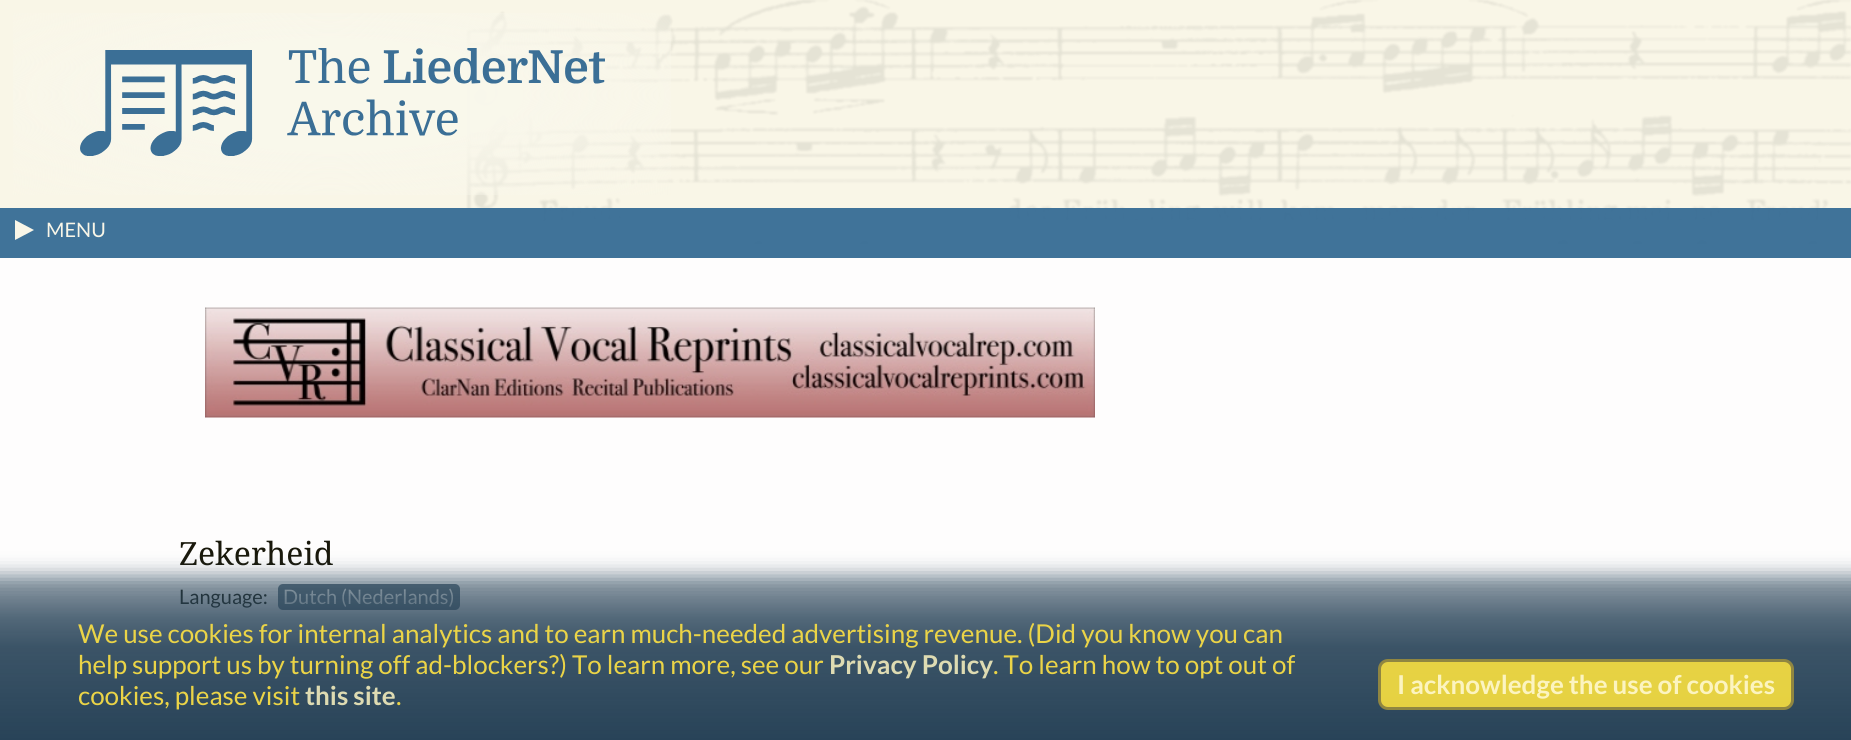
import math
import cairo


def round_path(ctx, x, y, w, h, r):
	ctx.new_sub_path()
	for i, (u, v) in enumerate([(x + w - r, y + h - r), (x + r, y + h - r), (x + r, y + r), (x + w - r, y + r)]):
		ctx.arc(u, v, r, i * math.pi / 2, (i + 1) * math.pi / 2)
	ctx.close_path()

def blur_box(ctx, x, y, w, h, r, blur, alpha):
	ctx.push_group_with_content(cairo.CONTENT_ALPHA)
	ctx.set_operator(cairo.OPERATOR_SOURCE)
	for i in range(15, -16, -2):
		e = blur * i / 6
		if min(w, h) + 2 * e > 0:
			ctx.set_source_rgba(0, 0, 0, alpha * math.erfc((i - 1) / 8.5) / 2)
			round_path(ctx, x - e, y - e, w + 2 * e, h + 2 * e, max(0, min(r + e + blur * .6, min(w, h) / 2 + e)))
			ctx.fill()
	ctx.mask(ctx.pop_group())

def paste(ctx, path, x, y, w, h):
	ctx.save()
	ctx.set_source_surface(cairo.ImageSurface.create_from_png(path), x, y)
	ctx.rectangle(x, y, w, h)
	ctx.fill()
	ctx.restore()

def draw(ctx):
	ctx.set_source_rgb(0.996, 0.992, 0.992)
	ctx.paint()
	ctx.set_source_rgb(0.973, 0.961, 0.906)
	ctx.rectangle(0, 0, 1851, 208)
	ctx.fill()
	paste(ctx, 'media/2.png', 466, 0, 1385, 246)
	gradient = cairo.RadialGradient(0, 0, 0, 0, 0, 1)
	gradient.set_matrix(cairo.Matrix(1 / 484, 0, 0, 1 / 142, -1 * 329 / 484, -1 * 95 / 142))
	gradient.add_color_stop_rgba(0.4, 0.976, 0.969, 0.922, 0.97)
	gradient.add_color_stop_rgba(1, 0.976, 0.969, 0.922, 0)
	ctx.set_source(gradient)
	ctx.rectangle(13, 13, 658, 182)
	ctx.fill()
	paste(ctx, 'media/1.png', 80, 48, 525, 108)
	ctx.set_source_rgba(0.231, 0.435, 0.588, 0.97)
	ctx.rectangle(0, 208, 1851, 50)
	ctx.fill()
	ctx.set_source_rgb(0.973, 0.961, 0.91)
	ctx.new_path()
	ctx.move_to(15, 220)
	ctx.line_to(15, 240)
	ctx.line_to(34, 230)
	ctx.close_path()
	ctx.fill()
	ctx.select_font_face('Lato')
	ctx.set_font_size(20)
	ctx.move_to(46, 237)
	ctx.show_text('MENU')
	paste(ctx, 'media/3.png', 205, 307, 890, 111)
	ctx.select_font_face('Noto Serif')
	ctx.set_font_size(32)
	ctx.set_source_rgb(0.098, 0.094, 0.043)
	ctx.move_to(179, 565)
	ctx.show_text('Zekerheid')
	ctx.select_font_face('Lato')
	ctx.set_font_size(20)
	ctx.move_to(179, 604)
	ctx.show_text('Language:')
	ctx.set_source_rgb(0.408, 0.482, 0.541)
	round_path(ctx, 278, 584, 182, 26, 5)
	ctx.fill()
	ctx.set_source_rgb(0.992, 0.992, 0.98)
	ctx.move_to(283, 604)
	ctx.show_text('Dutch (Nederlands)')
	ctx.save()
	ctx.set_fill_rule(cairo.FILL_RULE_EVEN_ODD)
	ctx.new_path()
	ctx.move_to(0, 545)
	ctx.line_to(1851, 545)
	ctx.line_to(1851, 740)
	ctx.line_to(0, 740)
	ctx.close_path()
	ctx.move_to(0, 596)
	ctx.line_to(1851, 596)
	ctx.line_to(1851, 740)
	ctx.line_to(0, 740)
	ctx.close_path()
	ctx.clip()
	ctx.set_source_rgb(0.157, 0.263, 0.345)
	blur_box(ctx, -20, 576, 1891, 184, 0, 10, 0.65)
	ctx.restore()
	gradient = cairo.LinearGradient(926, 740, 926, 596)
	gradient.add_color_stop_rgba(0, 0.157, 0.263, 0.345, 1)
	gradient.add_color_stop_rgba(0.65, 0.157, 0.263, 0.345, 0.91)
	gradient.add_color_stop_rgba(0.85, 0.157, 0.263, 0.345, 0.8)
	gradient.add_color_stop_rgba(1, 0.157, 0.263, 0.345, 0.65)
	ctx.set_source(gradient)
	ctx.rectangle(0, 596, 1851, 144)
	ctx.fill()
	ctx.set_font_size(26)
	ctx.set_source_rgb(0.918, 0.831, 0.278)
	ctx.move_to(78, 643)
	ctx.show_text('We use cookies for internal analytics and to earn much-needed advertising revenue. (Did you know you can')
	ctx.move_to(78, 674)
	ctx.show_text('help support us by turning off ad-blockers?) To learn more, see our')
	ctx.select_font_face('Lato', cairo.FONT_SLANT_NORMAL, cairo.FONT_WEIGHT_BOLD)
	ctx.set_source_rgb(0.871, 0.859, 0.698)
	ctx.move_to(829, 674)
	ctx.show_text('Privacy Policy')
	ctx.select_font_face('Lato')
	ctx.set_source_rgb(0.918, 0.831, 0.278)
	ctx.move_to(993, 674)
	ctx.show_text('. To learn how to opt out of')
	ctx.move_to(78, 705)
	ctx.show_text('cookies, please visit')
	ctx.select_font_face('Lato', cairo.FONT_SLANT_NORMAL, cairo.FONT_WEIGHT_BOLD)
	ctx.set_source_rgb(0.871, 0.859, 0.698)
	ctx.move_to(305, 705)
	ctx.show_text('this site')
	ctx.select_font_face('Lato')
	ctx.set_source_rgb(0.918, 0.831, 0.278)
	ctx.move_to(396, 705)
	ctx.show_text('.')
	ctx.set_source_rgba(0.941, 0.851, 0.259, 0.95)
	round_path(ctx, 1379.5, 660.5, 413, 48, 8.5)
	ctx.fill_preserve()
	ctx.set_source_rgb(0.565, 0.525, 0.255)
	ctx.set_line_width(3)
	ctx.stroke()
	ctx.select_font_face('Lato', cairo.FONT_SLANT_NORMAL, cairo.FONT_WEIGHT_BOLD)
	ctx.set_source_rgb(0.988, 0.957, 0.753)
	ctx.move_to(1397, 694)
	ctx.show_text('I acknowledge the use of cookies')


surface = cairo.ImageSurface(cairo.FORMAT_RGB24, 1851, 740)
ctx = cairo.Context(surface)
options = cairo.FontOptions()
options.set_hint_metrics(cairo.HINT_METRICS_OFF)
options.set_hint_style(cairo.HINT_STYLE_NONE)
ctx.set_font_options(options)
ctx.set_miter_limit(4)
draw(ctx)
surface.write_to_png('image.png')
